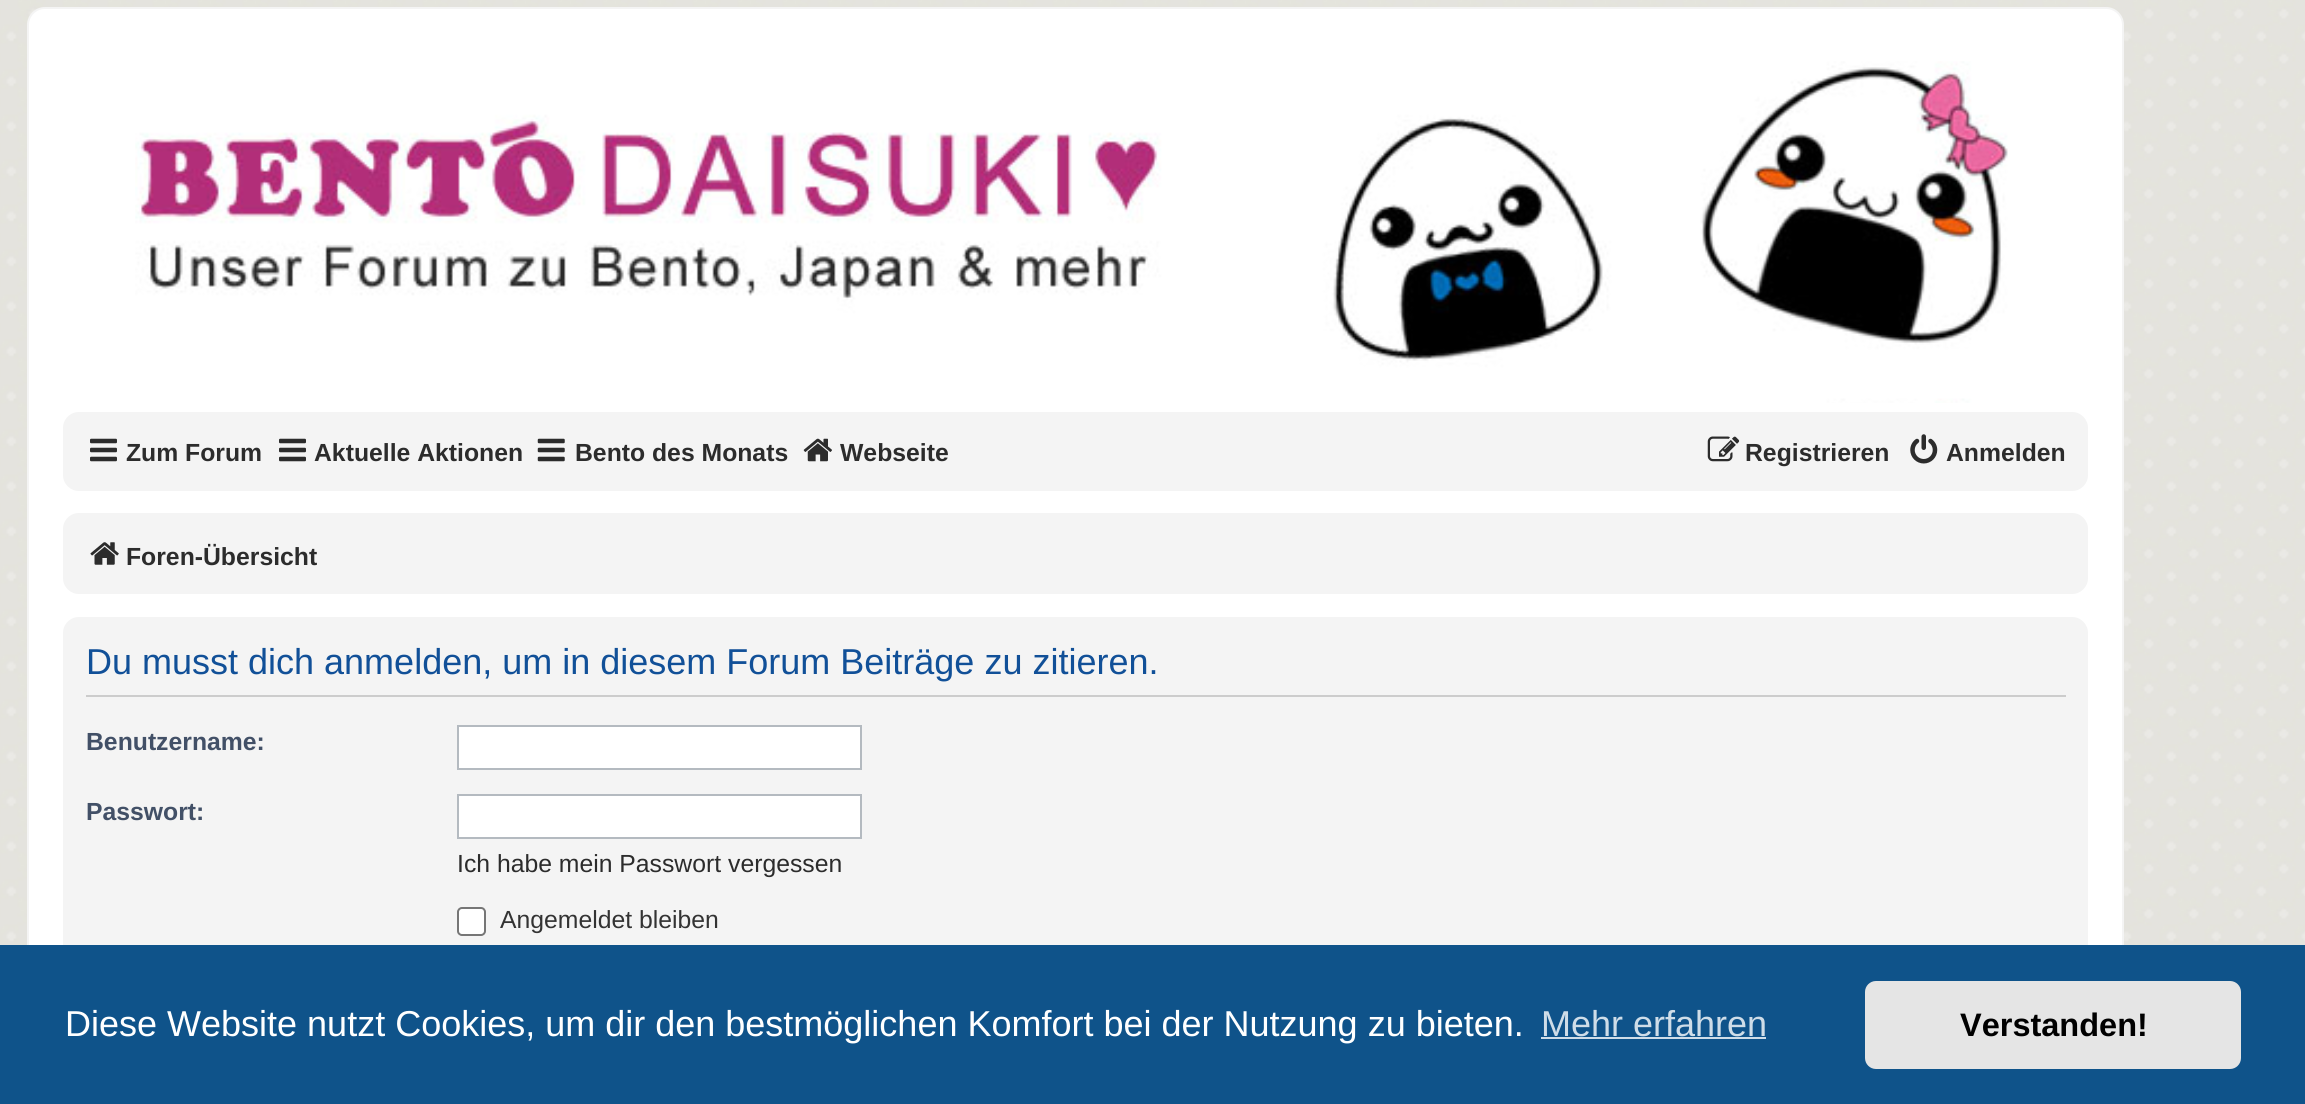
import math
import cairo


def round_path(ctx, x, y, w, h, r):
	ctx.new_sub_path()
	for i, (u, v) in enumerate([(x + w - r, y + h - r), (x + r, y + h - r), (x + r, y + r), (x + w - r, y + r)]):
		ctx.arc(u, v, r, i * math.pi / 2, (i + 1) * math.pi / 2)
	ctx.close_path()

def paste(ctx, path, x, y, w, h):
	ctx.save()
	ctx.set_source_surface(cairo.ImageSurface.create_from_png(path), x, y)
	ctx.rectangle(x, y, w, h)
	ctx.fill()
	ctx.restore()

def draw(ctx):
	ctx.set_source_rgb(1, 1, 1)
	ctx.paint()
	paste(ctx, 'media/1.png', 0, 0, 2305, 945)
	ctx.set_source_rgb(1, 1, 1)
	round_path(ctx, 28, 8, 2095, 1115, 17)
	ctx.fill_preserve()
	ctx.set_source_rgb(0.957, 0.957, 0.957)
	ctx.stroke()
	paste(ctx, 'media/2.png', 135, 61, 1873, 342)
	round_path(ctx, 63, 412, 2025, 79, 16)
	ctx.fill()
	paste(ctx, 'media/3.png', 90, 438, 27, 24)
	ctx.select_font_face('Liberation Sans', cairo.FONT_SLANT_NORMAL, cairo.FONT_WEIGHT_BOLD)
	ctx.set_font_size(24.75)
	ctx.set_source_rgb(0.173, 0.173, 0.173)
	ctx.move_to(126, 461)
	ctx.show_text('Zum Forum')
	paste(ctx, 'media/3.png', 279, 438, 27, 24)
	ctx.move_to(314, 461)
	ctx.show_text('Aktuelle Aktionen')
	paste(ctx, 'media/4.png', 537, 438, 28, 24)
	ctx.move_to(575, 461)
	ctx.show_text('Bento des Monats')
	paste(ctx, 'media/5.png', 803, 438, 29, 24)
	ctx.move_to(840, 461)
	ctx.show_text('Webseite')
	paste(ctx, 'media/6.png', 1707, 436, 33, 26)
	ctx.move_to(1745, 461)
	ctx.show_text('Registrieren')
	paste(ctx, 'media/7.png', 1910, 434, 28, 30)
	ctx.move_to(1946, 461)
	ctx.show_text('Anmelden')
	ctx.set_source_rgb(0.957, 0.957, 0.957)
	round_path(ctx, 63, 513, 2025, 81, 16)
	ctx.fill()
	paste(ctx, 'media/8.png', 90, 542, 29, 23)
	ctx.set_source_rgb(0.173, 0.173, 0.173)
	ctx.move_to(126, 565)
	ctx.show_text('Foren-Übersicht')
	ctx.set_source_rgb(0.957, 0.957, 0.957)
	round_path(ctx, 63, 617, 2025, 459, 16)
	ctx.fill()
	ctx.set_source_rgb(0.8, 0.8, 0.8)
	ctx.rectangle(86, 695, 1980, 2)
	ctx.fill()
	ctx.select_font_face('Liberation Sans')
	ctx.set_font_size(36)
	ctx.set_source_rgb(0.067, 0.314, 0.596)
	ctx.move_to(86, 674)
	ctx.show_text('Du musst dich anmelden, um in diesem Forum Beiträge zu zitieren.')
	ctx.select_font_face('Liberation Sans', cairo.FONT_SLANT_NORMAL, cairo.FONT_WEIGHT_BOLD)
	ctx.set_font_size(24.75)
	ctx.set_source_rgb(0.259, 0.314, 0.404)
	ctx.move_to(86, 750)
	ctx.show_text('Benutzername:')
	ctx.set_source_rgb(1, 1, 1)
	ctx.rectangle(458, 726, 403, 43)
	ctx.fill_preserve()
	ctx.set_source_rgb(0.706, 0.729, 0.753)
	ctx.stroke()
	ctx.set_source_rgb(0.259, 0.314, 0.404)
	ctx.move_to(86, 820)
	ctx.show_text('Passwort:')
	ctx.set_source_rgb(1, 1, 1)
	ctx.rectangle(458, 795, 403, 43)
	ctx.fill_preserve()
	ctx.set_source_rgb(0.706, 0.729, 0.753)
	ctx.stroke()
	ctx.select_font_face('Liberation Sans')
	ctx.set_source_rgb(0.173, 0.173, 0.173)
	ctx.move_to(457, 872)
	ctx.show_text('Ich habe mein Passwort vergessen')
	ctx.set_source_rgb(1, 1, 1)
	round_path(ctx, 458, 908, 27, 27, 4)
	ctx.fill_preserve()
	ctx.set_source_rgb(0.463, 0.463, 0.463)
	ctx.stroke()
	ctx.set_source_rgb(0.2, 0.2, 0.2)
	ctx.move_to(500, 928)
	ctx.show_text('Angemeldet bleiben')
	ctx.set_source_rgb(0.059, 0.325, 0.541)
	ctx.rectangle(0, 945, 2305, 159)
	ctx.fill()
	ctx.set_font_size(36)
	ctx.set_source_rgb(1, 1, 1)
	ctx.move_to(65, 1036)
	ctx.show_text('Diese Website nutzt Cookies, um dir den bestmöglichen Komfort bei der Nutzung zu bieten.')
	ctx.set_source_rgb(0.812, 0.867, 0.91)
	ctx.move_to(1541, 1036)
	ctx.show_text('Mehr erfahren')
	ctx.rectangle(1541, 1037, 225, 2)
	ctx.fill()
	ctx.set_source_rgb(0.898, 0.898, 0.898)
	round_path(ctx, 1865, 981, 376, 88, 11)
	ctx.fill()
	ctx.select_font_face('Liberation Sans', cairo.FONT_SLANT_NORMAL, cairo.FONT_WEIGHT_BOLD)
	ctx.set_font_size(32.5)
	ctx.set_source_rgb(0, 0, 0)
	ctx.move_to(1960, 1036)
	ctx.show_text('Verstanden!')


surface = cairo.ImageSurface(cairo.FORMAT_RGB24, 2305, 1104)
ctx = cairo.Context(surface)
options = cairo.FontOptions()
options.set_hint_metrics(cairo.HINT_METRICS_OFF)
options.set_hint_style(cairo.HINT_STYLE_NONE)
ctx.set_font_options(options)
ctx.set_miter_limit(4)
draw(ctx)
surface.write_to_png('image.png')
